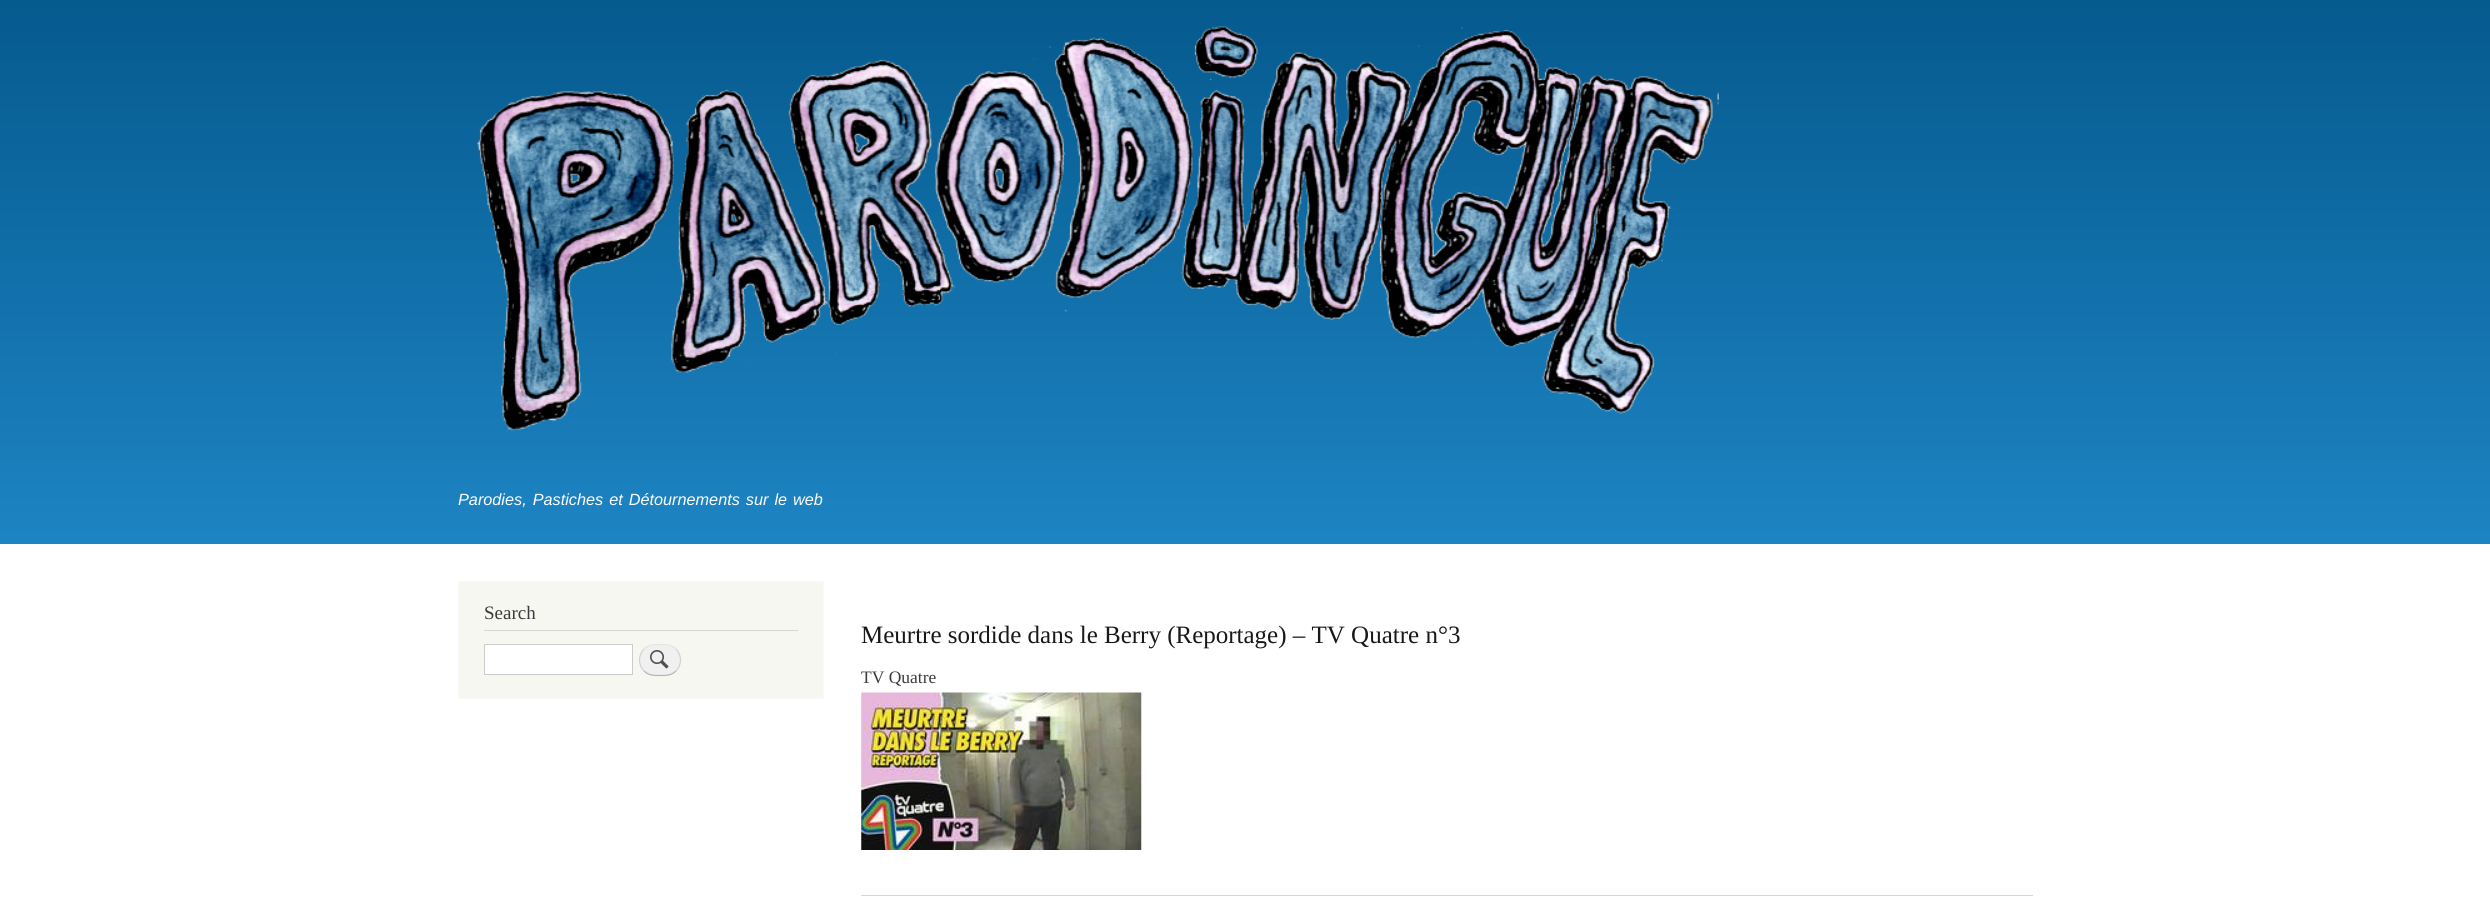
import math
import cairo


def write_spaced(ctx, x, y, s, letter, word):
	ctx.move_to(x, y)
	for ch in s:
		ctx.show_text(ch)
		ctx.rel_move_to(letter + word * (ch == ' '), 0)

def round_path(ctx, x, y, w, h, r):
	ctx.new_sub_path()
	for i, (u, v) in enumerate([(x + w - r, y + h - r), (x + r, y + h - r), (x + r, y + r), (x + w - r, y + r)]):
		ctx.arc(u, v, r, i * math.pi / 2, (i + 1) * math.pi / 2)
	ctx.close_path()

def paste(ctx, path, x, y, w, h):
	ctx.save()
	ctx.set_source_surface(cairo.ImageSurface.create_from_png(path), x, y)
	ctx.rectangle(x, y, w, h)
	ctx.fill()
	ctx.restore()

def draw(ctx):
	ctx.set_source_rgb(1, 1, 1)
	ctx.paint()
	gradient = cairo.LinearGradient(1245, 0, 1245, 544)
	gradient.add_color_stop_rgba(0, 0.02, 0.353, 0.557, 1)
	gradient.add_color_stop_rgba(1, 0.114, 0.518, 0.765, 1)
	ctx.set_source(gradient)
	ctx.rectangle(0, 0, 2490, 544)
	ctx.fill()
	paste(ctx, 'media/1.png', 477, 26, 1242, 405)
	ctx.select_font_face('Liberation Sans', cairo.FONT_SLANT_ITALIC)
	ctx.set_font_size(16.25)
	ctx.set_source_rgb(1, 0.996, 1)
	write_spaced(ctx, 458, 505, 'Parodies, Pastiches et Détournements sur le web', 0, 1.5)
	ctx.set_source_rgb(0.965, 0.965, 0.949)
	ctx.rectangle(458.5, 581.5, 365, 117)
	ctx.fill_preserve()
	ctx.set_source_rgb(0.976, 0.976, 0.976)
	ctx.set_line_width(1)
	ctx.stroke()
	ctx.set_source_rgb(0.839, 0.839, 0.839)
	ctx.rectangle(484, 630, 314, 1)
	ctx.fill()
	ctx.select_font_face('Liberation Serif')
	ctx.set_font_size(19)
	ctx.set_source_rgb(0.231, 0.231, 0.231)
	ctx.move_to(484, 619)
	ctx.show_text('Search')
	ctx.set_source_rgb(1, 1, 1)
	ctx.rectangle(484.5, 644.5, 148, 30)
	ctx.fill_preserve()
	ctx.set_source_rgb(0.8, 0.8, 0.8)
	ctx.stroke()
	ctx.set_source_rgb(0.941, 0.941, 0.941)
	round_path(ctx, 639, 644, 42, 32, 16)
	ctx.fill()
	paste(ctx, 'media/2.png', 650, 650, 19, 19)
	ctx.new_path()
	ctx.move_to(644, 649)
	ctx.curve_to(648.5, 644.5, 654, 644.5, 660, 644.5)
	ctx.curve_to(666, 644.5, 671.5, 644.5, 676, 649)
	ctx.set_source_rgb(0.894, 0.894, 0.894)
	ctx.set_line_width(1.2)
	ctx.stroke()
	ctx.new_path()
	ctx.move_to(676, 649)
	ctx.curve_to(682, 655, 682, 665, 676, 671)
	ctx.set_source_rgb(0.824, 0.824, 0.824)
	ctx.stroke()
	ctx.new_path()
	ctx.move_to(676, 671)
	ctx.curve_to(671.5, 675.5, 666, 675.5, 660, 675.5)
	ctx.curve_to(654, 675.5, 648.5, 675.5, 644, 671)
	ctx.set_source_rgb(0.706, 0.706, 0.706)
	ctx.stroke()
	ctx.new_path()
	ctx.move_to(644, 671)
	ctx.curve_to(638, 665, 638, 655, 644, 649)
	ctx.set_source_rgb(0.824, 0.824, 0.824)
	ctx.stroke()
	ctx.set_source_rgb(0.827, 0.843, 0.851)
	ctx.rectangle(861, 895, 1172, 1)
	ctx.fill()
	ctx.set_font_size(25)
	ctx.set_source_rgb(0.094, 0.094, 0.094)
	ctx.move_to(861, 643)
	ctx.show_text('Meurtre sordide dans le Berry (Reportage) – TV Quatre n°3')
	ctx.set_font_size(17.5)
	ctx.set_source_rgb(0.231, 0.231, 0.231)
	ctx.move_to(861, 683)
	ctx.show_text('TV Quatre')
	paste(ctx, 'media/3.png', 861, 692, 281, 158)


surface = cairo.ImageSurface(cairo.FORMAT_RGB24, 2490, 903)
ctx = cairo.Context(surface)
options = cairo.FontOptions()
options.set_hint_metrics(cairo.HINT_METRICS_OFF)
options.set_hint_style(cairo.HINT_STYLE_NONE)
ctx.set_font_options(options)
ctx.set_miter_limit(4)
draw(ctx)
surface.write_to_png('image.png')
